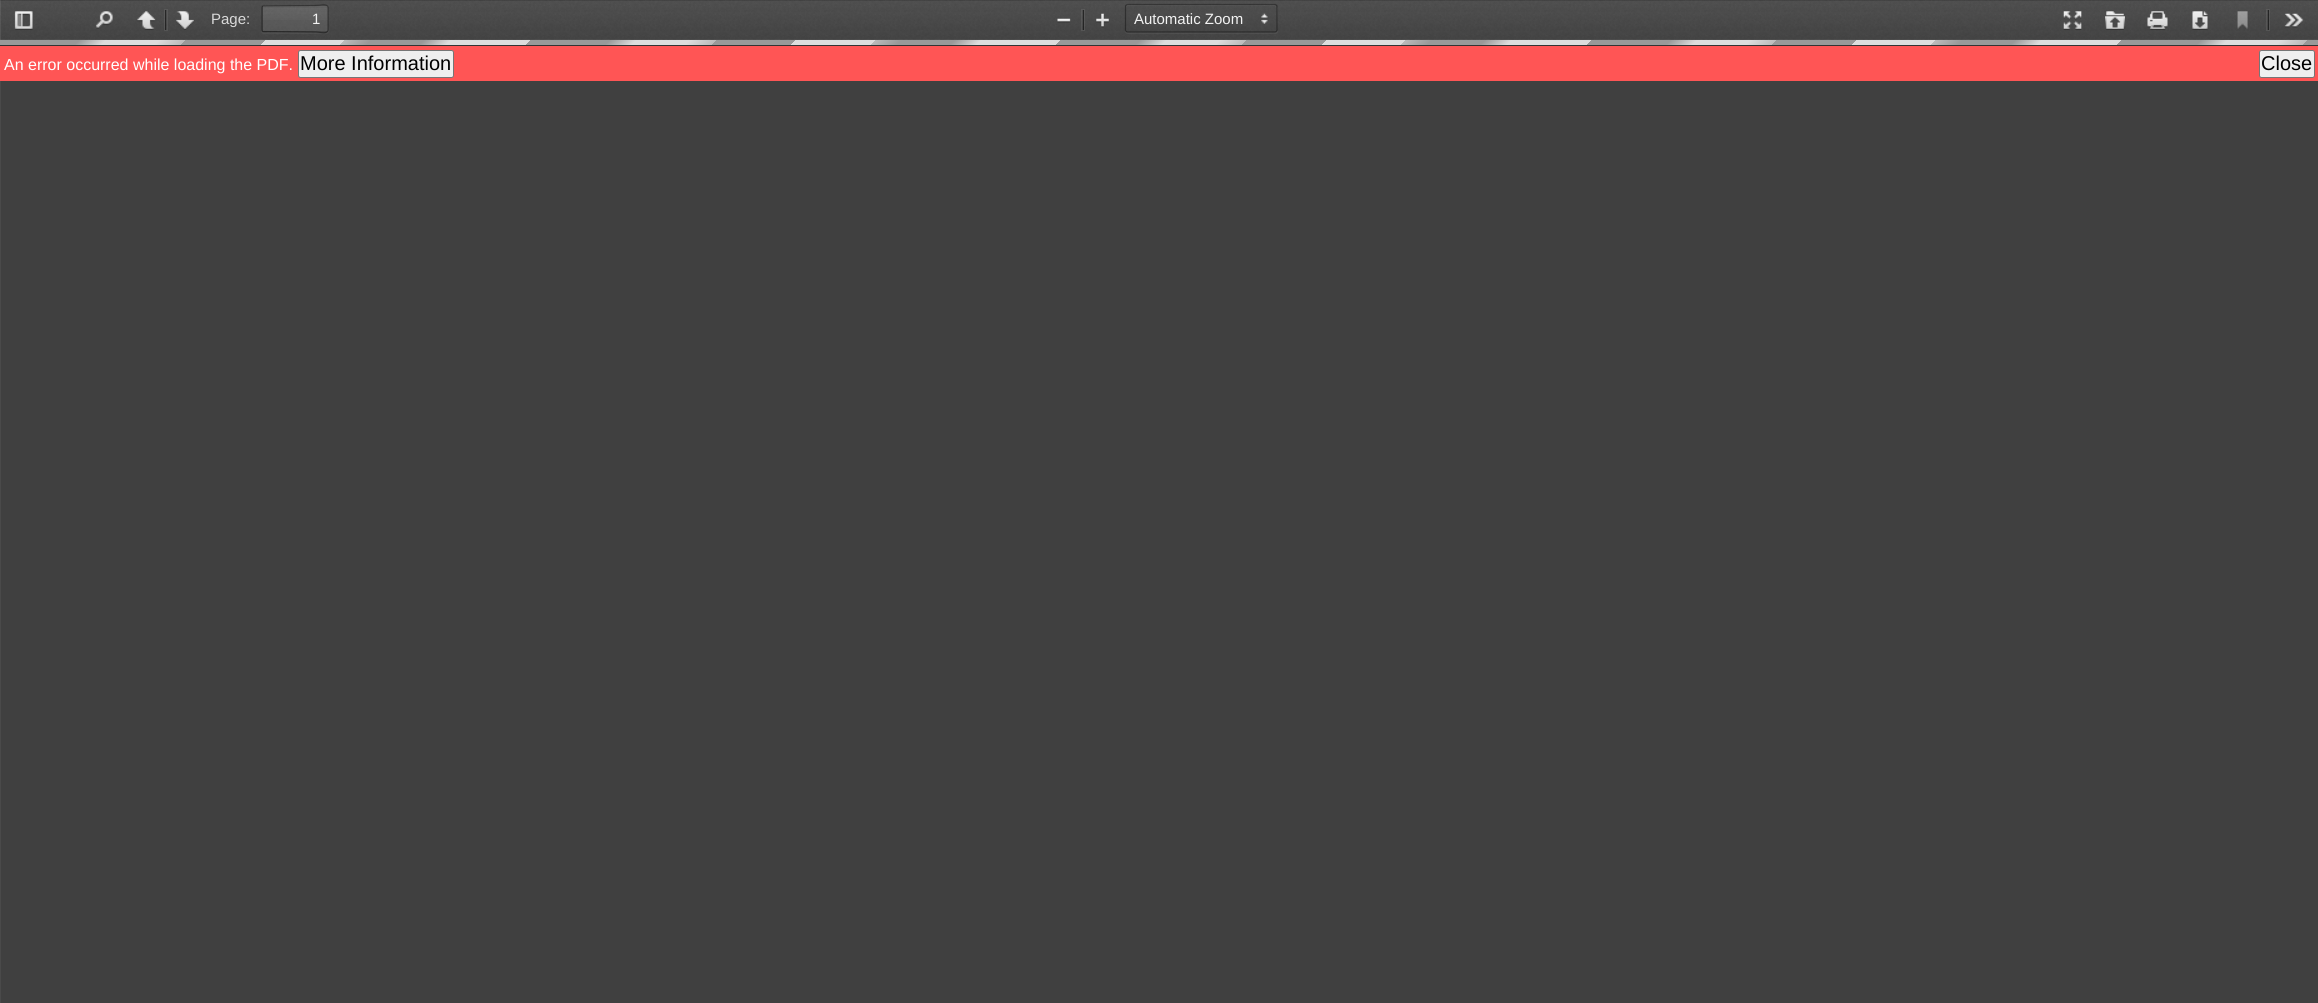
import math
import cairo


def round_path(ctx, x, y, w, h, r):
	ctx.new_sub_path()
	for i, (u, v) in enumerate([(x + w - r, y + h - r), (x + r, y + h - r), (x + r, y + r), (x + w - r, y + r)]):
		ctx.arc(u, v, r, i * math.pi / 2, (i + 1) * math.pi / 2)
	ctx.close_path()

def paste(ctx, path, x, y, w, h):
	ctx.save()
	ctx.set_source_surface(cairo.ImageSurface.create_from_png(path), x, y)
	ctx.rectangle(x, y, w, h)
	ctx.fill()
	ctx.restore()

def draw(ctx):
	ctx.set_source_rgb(0.251, 0.251, 0.251)
	ctx.paint()
	paste(ctx, 'media/1.png', 0, 0, 2318, 40)
	ctx.set_source_rgba(1, 1, 1, 0.05)
	ctx.rectangle(0, 39, 2318, 1)
	ctx.fill()
	ctx.set_source_rgba(0, 0, 0, 0.15)
	ctx.rectangle(0, 0, 2318, 1)
	ctx.fill()
	ctx.set_source_rgba(1, 1, 1, 0.08)
	ctx.rectangle(0, 0, 1, 40)
	ctx.fill()
	paste(ctx, 'media/2.png', 14, 11, 19, 19)
	paste(ctx, 'media/3.png', 96, 11, 17, 18)
	paste(ctx, 'media/4.png', 137, 11, 19, 19)
	ctx.rectangle(164.5, 9.5, 3, 21)
	ctx.set_line_width(1)
	ctx.stroke()
	ctx.set_source_rgba(0, 0, 0, 0.5)
	ctx.rectangle(165, 10, 1, 20)
	ctx.fill()
	paste(ctx, 'media/5.png', 176, 11, 18, 19)
	ctx.select_font_face('Liberation Sans')
	ctx.set_font_size(15)
	ctx.set_source_rgb(0.851, 0.851, 0.851)
	ctx.move_to(211, 24)
	ctx.show_text('Page:')
	ctx.set_source_rgba(1, 1, 1, 0.05)
	ctx.new_path()
	ctx.move_to(261, 7)
	ctx.line_to(261, 24)
	ctx.curve_to(261, 36, 260, 34, 274, 34)
	ctx.line_to(316, 34)
	ctx.curve_to(330, 34, 329, 36, 329, 24)
	ctx.line_to(329, 7)
	ctx.line_to(329, 26)
	ctx.curve_to(329, 35, 326, 32, 316, 32)
	ctx.line_to(274, 32)
	ctx.curve_to(264, 32, 261, 35, 261, 26)
	ctx.close_path()
	ctx.fill()
	ctx.set_source_rgba(1, 1, 1, 0.09)
	ctx.rectangle(263, 6, 65, 25)
	ctx.fill()
	gradient = cairo.LinearGradient(295, 6.2, 295, 31)
	gradient.add_color_stop_rgba(0, 1, 1, 1, 0.05)
	gradient.add_color_stop_rgba(1, 1, 1, 1, 0)
	ctx.set_source(gradient)
	ctx.rectangle(263, 6, 65, 14)
	ctx.fill()
	ctx.set_source_rgba(0, 0, 0, 0.05)
	ctx.new_path()
	ctx.move_to(264, 8)
	ctx.line_to(326, 8)
	ctx.curve_to(327, 8, 328, 8, 328, 9)
	ctx.curve_to(328, 3, 324, 6, 316, 6)
	ctx.line_to(264, 6)
	ctx.curve_to(263, 6, 263, 7, 263, 8)
	ctx.close_path()
	ctx.fill()
	ctx.new_path()
	ctx.move_to(262.5, 6)
	ctx.line_to(316, 5.5)
	ctx.curve_to(320, 5.5, 325, 3.5, 327.5, 6)
	ctx.set_source_rgba(0, 0, 0, 0.32)
	ctx.set_line_width(1.2)
	ctx.stroke()
	ctx.new_path()
	ctx.move_to(327.5, 6)
	ctx.line_to(328, 7.5)
	ctx.line_to(328, 30)
	ctx.line_to(327.5, 31.5)
	ctx.set_source_rgba(0, 0, 0, 0.38)
	ctx.stroke()
	ctx.new_path()
	ctx.move_to(327.5, 31.5)
	ctx.curve_to(325, 34, 320, 32, 316, 32)
	ctx.line_to(262.5, 31.5)
	ctx.set_source_rgba(0, 0, 0, 0.42)
	ctx.stroke()
	ctx.new_path()
	ctx.move_to(262.5, 31.5)
	ctx.line_to(262, 30)
	ctx.line_to(262, 7.5)
	ctx.line_to(262.5, 6)
	ctx.set_source_rgba(0, 0, 0, 0.38)
	ctx.stroke()
	ctx.set_source_rgb(0.949, 0.949, 0.949)
	ctx.move_to(312, 24)
	ctx.show_text('1')
	paste(ctx, 'media/6.png', 1057, 18, 14, 5)
	ctx.rectangle(1081.5, 9.5, 3, 21)
	ctx.set_source_rgba(1, 1, 1, 0.08)
	ctx.set_line_width(1)
	ctx.stroke()
	ctx.set_source_rgba(0, 0, 0, 0.5)
	ctx.rectangle(1083, 10, 1, 20)
	ctx.fill()
	paste(ctx, 'media/7.png', 1096, 13, 13, 15)
	ctx.set_source_rgba(1, 1, 1, 0.05)
	ctx.new_path()
	ctx.move_to(1125, 30)
	ctx.line_to(1125, 32)
	ctx.curve_to(1125, 33, 1126, 34, 1128, 34)
	ctx.line_to(1276, 34)
	ctx.curve_to(1277, 34, 1278, 33, 1278, 32)
	ctx.line_to(1278, 8)
	ctx.line_to(1277, 6)
	ctx.line_to(1278, 30)
	ctx.curve_to(1278, 31, 1276, 32, 1275, 32)
	ctx.line_to(1128, 32)
	ctx.curve_to(1126, 32, 1125, 31, 1125, 30)
	ctx.close_path()
	ctx.fill()
	paste(ctx, 'media/8.png', 1261, 13, 7, 11)
	ctx.new_path()
	ctx.move_to(1128, 6)
	ctx.line_to(1275, 6)
	ctx.line_to(1276, 8)
	ctx.curve_to(1276, 7, 1276, 6, 1275, 5)
	ctx.line_to(1127, 5)
	ctx.curve_to(1126, 5, 1126, 7, 1126, 8)
	ctx.curve_to(1126, 7, 1127, 6, 1128, 6)
	ctx.close_path()
	ctx.fill()
	ctx.new_path()
	ctx.move_to(1126, 5)
	ctx.line_to(1127.5, 4.5)
	ctx.line_to(1275, 4.5)
	ctx.line_to(1276.5, 5)
	ctx.set_source_rgba(0, 0, 0, 0.32)
	ctx.set_line_width(1.2)
	ctx.stroke()
	ctx.new_path()
	ctx.move_to(1276.5, 5)
	ctx.line_to(1277, 6)
	ctx.line_to(1277, 30)
	ctx.line_to(1276.5, 31.5)
	ctx.set_source_rgba(0, 0, 0, 0.38)
	ctx.stroke()
	ctx.new_path()
	ctx.move_to(1276.5, 31.5)
	ctx.line_to(1275, 32)
	ctx.line_to(1127.5, 32)
	ctx.line_to(1126, 31.5)
	ctx.set_source_rgba(0, 0, 0, 0.42)
	ctx.stroke()
	ctx.new_path()
	ctx.move_to(1126, 31.5)
	ctx.line_to(1125.5, 30)
	ctx.line_to(1125.5, 6.5)
	ctx.line_to(1126, 5)
	ctx.set_source_rgba(0, 0, 0, 0.38)
	ctx.stroke()
	ctx.set_source_rgb(0.949, 0.949, 0.949)
	ctx.move_to(1134, 24)
	ctx.show_text('Automatic Zoom')
	paste(ctx, 'media/9.png', 2063, 11, 19, 19)
	paste(ctx, 'media/10.png', 2105, 11, 20, 19)
	paste(ctx, 'media/11.png', 2147, 11, 21, 19)
	paste(ctx, 'media/12.png', 2192, 11, 16, 19)
	paste(ctx, 'media/13.png', 2237, 11, 11, 18)
	ctx.rectangle(2266.5, 9.5, 3, 21)
	ctx.set_source_rgba(1, 1, 1, 0.08)
	ctx.set_line_width(1)
	ctx.stroke()
	ctx.set_source_rgba(0, 0, 0, 0.5)
	ctx.rectangle(2268, 10, 1, 20)
	ctx.fill()
	paste(ctx, 'media/14.png', 2284, 13, 20, 15)
	ctx.set_source_rgb(0.2, 0.2, 0.2)
	ctx.rectangle(0, 45, 2318, 1)
	ctx.fill()
	gradient = cairo.LinearGradient(625, -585, 1951, 741)
	gradient.add_color_stop_rgba(0, 0.733, 0.733, 0.733, 1)
	gradient.add_color_stop_rgba(0, 0.6, 0.6, 0.6, 1)
	gradient.add_color_stop_rgba(0.03, 0.6, 0.6, 0.6, 1)
	gradient.add_color_stop_rgba(0.04, 0.867, 0.867, 0.867, 1)
	gradient.add_color_stop_rgba(0.06, 0.867, 0.867, 0.867, 1)
	gradient.add_color_stop_rgba(0.07, 0.733, 0.733, 0.733, 1)
	gradient.add_color_stop_rgba(0.07, 0.6, 0.6, 0.6, 1)
	gradient.add_color_stop_rgba(0.1, 0.6, 0.6, 0.6, 1)
	gradient.add_color_stop_rgba(0.1, 0.867, 0.867, 0.867, 1)
	gradient.add_color_stop_rgba(0.13, 0.867, 0.867, 0.867, 1)
	gradient.add_color_stop_rgba(0.13, 0.733, 0.733, 0.733, 1)
	gradient.add_color_stop_rgba(0.14, 0.6, 0.6, 0.6, 1)
	gradient.add_color_stop_rgba(0.16, 0.6, 0.6, 0.6, 1)
	gradient.add_color_stop_rgba(0.17, 0.867, 0.867, 0.867, 1)
	gradient.add_color_stop_rgba(0.2, 0.867, 0.867, 0.867, 1)
	gradient.add_color_stop_rgba(0.2, 0.733, 0.733, 0.733, 1)
	gradient.add_color_stop_rgba(0.2, 0.6, 0.6, 0.6, 1)
	gradient.add_color_stop_rgba(0.23, 0.6, 0.6, 0.6, 1)
	gradient.add_color_stop_rgba(0.24, 0.867, 0.867, 0.867, 1)
	gradient.add_color_stop_rgba(0.26, 0.867, 0.867, 0.867, 1)
	gradient.add_color_stop_rgba(0.27, 0.733, 0.733, 0.733, 1)
	gradient.add_color_stop_rgba(0.27, 0.6, 0.6, 0.6, 1)
	gradient.add_color_stop_rgba(0.3, 0.6, 0.6, 0.6, 1)
	gradient.add_color_stop_rgba(0.3, 0.867, 0.867, 0.867, 1)
	gradient.add_color_stop_rgba(0.33, 0.867, 0.867, 0.867, 1)
	gradient.add_color_stop_rgba(0.33, 0.733, 0.733, 0.733, 1)
	gradient.add_color_stop_rgba(0.34, 0.6, 0.6, 0.6, 1)
	gradient.add_color_stop_rgba(0.36, 0.6, 0.6, 0.6, 1)
	gradient.add_color_stop_rgba(0.37, 0.867, 0.867, 0.867, 1)
	gradient.add_color_stop_rgba(0.4, 0.867, 0.867, 0.867, 1)
	gradient.add_color_stop_rgba(0.4, 0.733, 0.733, 0.733, 1)
	gradient.add_color_stop_rgba(0.4, 0.6, 0.6, 0.6, 1)
	gradient.add_color_stop_rgba(0.43, 0.6, 0.6, 0.6, 1)
	gradient.add_color_stop_rgba(0.44, 0.867, 0.867, 0.867, 1)
	gradient.add_color_stop_rgba(0.46, 0.867, 0.867, 0.867, 1)
	gradient.add_color_stop_rgba(0.47, 0.733, 0.733, 0.733, 1)
	gradient.add_color_stop_rgba(0.47, 0.6, 0.6, 0.6, 1)
	gradient.add_color_stop_rgba(0.5, 0.6, 0.6, 0.6, 1)
	gradient.add_color_stop_rgba(0.5, 0.867, 0.867, 0.867, 1)
	gradient.add_color_stop_rgba(0.53, 0.867, 0.867, 0.867, 1)
	gradient.add_color_stop_rgba(0.53, 0.733, 0.733, 0.733, 1)
	gradient.add_color_stop_rgba(0.54, 0.6, 0.6, 0.6, 1)
	gradient.add_color_stop_rgba(0.56, 0.6, 0.6, 0.6, 1)
	gradient.add_color_stop_rgba(0.57, 0.867, 0.867, 0.867, 1)
	gradient.add_color_stop_rgba(0.6, 0.867, 0.867, 0.867, 1)
	gradient.add_color_stop_rgba(0.6, 0.733, 0.733, 0.733, 1)
	gradient.add_color_stop_rgba(0.6, 0.6, 0.6, 0.6, 1)
	gradient.add_color_stop_rgba(0.63, 0.6, 0.6, 0.6, 1)
	gradient.add_color_stop_rgba(0.64, 0.867, 0.867, 0.867, 1)
	gradient.add_color_stop_rgba(0.66, 0.867, 0.867, 0.867, 1)
	gradient.add_color_stop_rgba(0.67, 0.733, 0.733, 0.733, 1)
	gradient.add_color_stop_rgba(0.67, 0.6, 0.6, 0.6, 1)
	gradient.add_color_stop_rgba(0.7, 0.6, 0.6, 0.6, 1)
	gradient.add_color_stop_rgba(0.7, 0.867, 0.867, 0.867, 1)
	gradient.add_color_stop_rgba(0.73, 0.867, 0.867, 0.867, 1)
	gradient.add_color_stop_rgba(0.73, 0.733, 0.733, 0.733, 1)
	gradient.add_color_stop_rgba(0.74, 0.6, 0.6, 0.6, 1)
	gradient.add_color_stop_rgba(0.76, 0.6, 0.6, 0.6, 1)
	gradient.add_color_stop_rgba(0.77, 0.867, 0.867, 0.867, 1)
	gradient.add_color_stop_rgba(0.8, 0.867, 0.867, 0.867, 1)
	gradient.add_color_stop_rgba(0.8, 0.733, 0.733, 0.733, 1)
	gradient.add_color_stop_rgba(0.8, 0.6, 0.6, 0.6, 1)
	gradient.add_color_stop_rgba(0.83, 0.6, 0.6, 0.6, 1)
	gradient.add_color_stop_rgba(0.84, 0.867, 0.867, 0.867, 1)
	gradient.add_color_stop_rgba(0.86, 0.867, 0.867, 0.867, 1)
	gradient.add_color_stop_rgba(0.87, 0.733, 0.733, 0.733, 1)
	gradient.add_color_stop_rgba(0.87, 0.6, 0.6, 0.6, 1)
	gradient.add_color_stop_rgba(0.9, 0.6, 0.6, 0.6, 1)
	gradient.add_color_stop_rgba(0.9, 0.867, 0.867, 0.867, 1)
	gradient.add_color_stop_rgba(0.93, 0.867, 0.867, 0.867, 1)
	gradient.add_color_stop_rgba(0.93, 0.733, 0.733, 0.733, 1)
	gradient.add_color_stop_rgba(0.94, 0.6, 0.6, 0.6, 1)
	gradient.add_color_stop_rgba(0.96, 0.6, 0.6, 0.6, 1)
	gradient.add_color_stop_rgba(0.97, 0.867, 0.867, 0.867, 1)
	gradient.add_color_stop_rgba(1, 0.867, 0.867, 0.867, 1)
	gradient.add_color_stop_rgba(1, 0.733, 0.733, 0.733, 1)
	ctx.set_source(gradient)
	ctx.rectangle(0, 40, 2318, 5)
	ctx.fill()
	ctx.set_source_rgb(1, 0.333, 0.333)
	ctx.rectangle(0, 46, 2318, 35)
	ctx.fill()
	ctx.set_font_size(16)
	ctx.set_source_rgb(1, 1, 1)
	ctx.move_to(4, 70)
	ctx.show_text('An error occurred while loading the PDF.')
	ctx.set_source_rgb(0.937, 0.937, 0.937)
	round_path(ctx, 298.5, 50.5, 155, 27, 2)
	ctx.fill_preserve()
	ctx.set_source_rgb(0.463, 0.463, 0.463)
	ctx.stroke()
	ctx.set_font_size(20)
	ctx.set_source_rgb(0, 0, 0)
	ctx.move_to(300, 70)
	ctx.show_text('More Information')
	ctx.set_source_rgb(0.937, 0.937, 0.937)
	round_path(ctx, 2259.5, 50.5, 55, 27, 2)
	ctx.fill_preserve()
	ctx.set_source_rgb(0.463, 0.463, 0.463)
	ctx.stroke()
	ctx.set_source_rgb(0, 0, 0)
	ctx.move_to(2261, 70)
	ctx.show_text('Close')
	ctx.set_source_rgb(0.29, 0.29, 0.29)
	ctx.rectangle(0, 81, 1, 922)
	ctx.fill()


surface = cairo.ImageSurface(cairo.FORMAT_RGB24, 2318, 1003)
ctx = cairo.Context(surface)
options = cairo.FontOptions()
options.set_hint_metrics(cairo.HINT_METRICS_OFF)
options.set_hint_style(cairo.HINT_STYLE_NONE)
ctx.set_font_options(options)
ctx.set_miter_limit(4)
draw(ctx)
surface.write_to_png('image.png')
